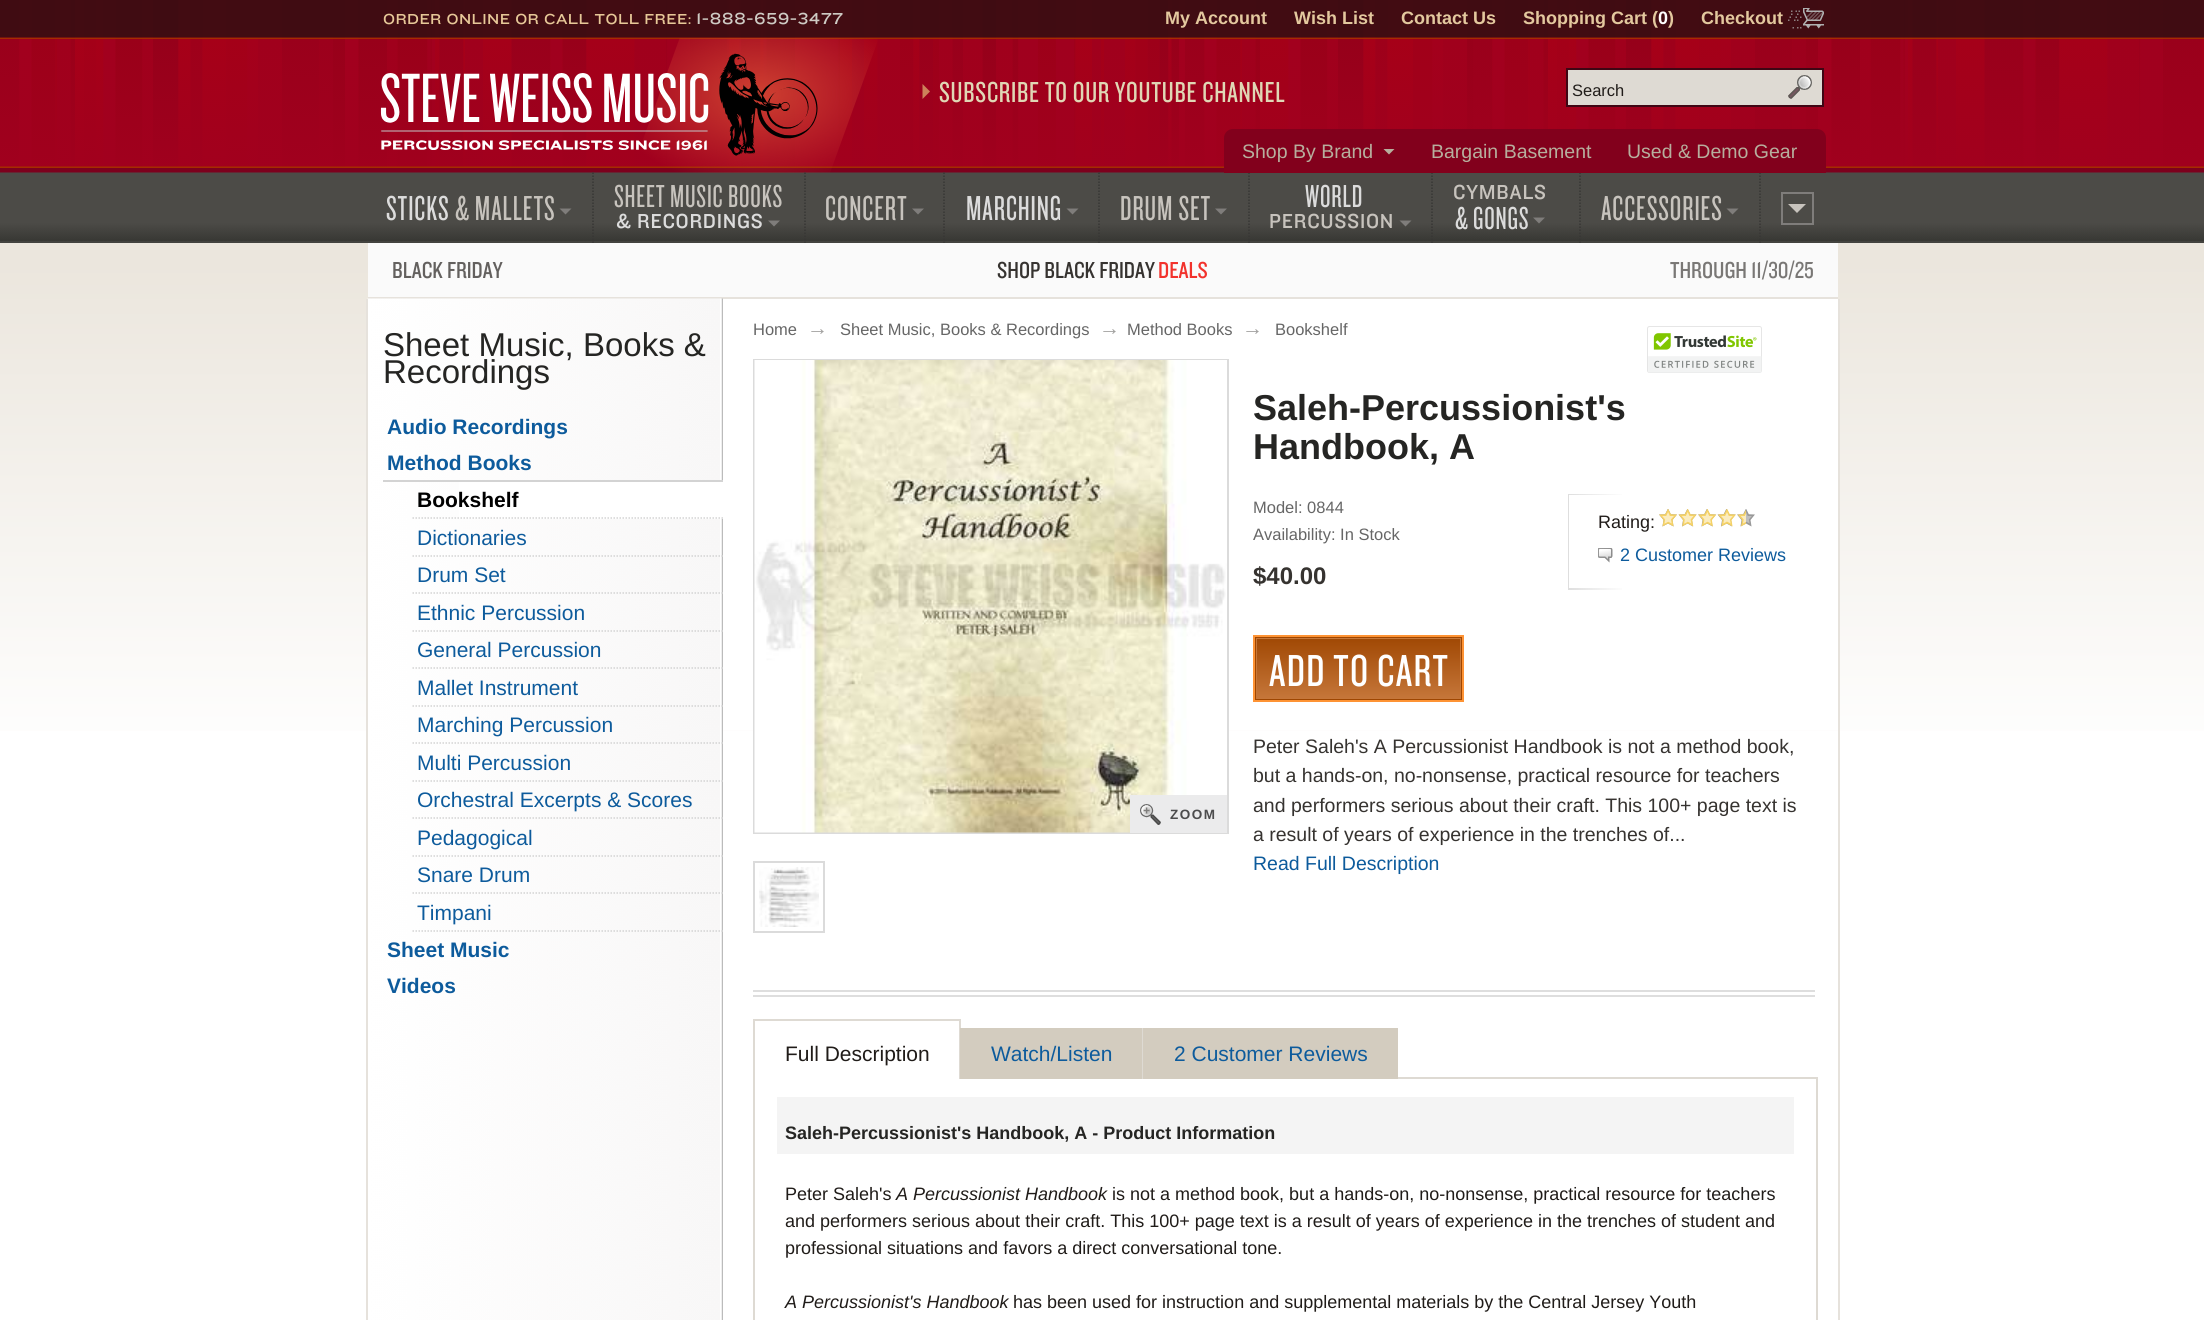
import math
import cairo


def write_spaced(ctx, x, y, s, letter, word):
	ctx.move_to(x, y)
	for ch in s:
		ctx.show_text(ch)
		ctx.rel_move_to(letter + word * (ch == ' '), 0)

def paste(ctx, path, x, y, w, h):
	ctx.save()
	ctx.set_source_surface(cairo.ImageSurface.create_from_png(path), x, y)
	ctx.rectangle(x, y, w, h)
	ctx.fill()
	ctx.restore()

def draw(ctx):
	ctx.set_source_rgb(1, 1, 1)
	ctx.paint()
	gradient = cairo.LinearGradient(1102, 0, 1103, 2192)
	gradient.add_color_stop_rgba(0.12, 0.922, 0.902, 0.867, 1)
	gradient.add_color_stop_rgba(0.35, 1, 1, 1, 1)
	ctx.set_source(gradient)
	ctx.rectangle(0, 243, 2204, 488)
	ctx.fill()
	paste(ctx, 'media/1.png', 0, 0, 2204, 243)
	ctx.select_font_face('Liberation Sans', cairo.FONT_SLANT_NORMAL, cairo.FONT_WEIGHT_BOLD)
	ctx.set_font_size(18)
	ctx.set_source_rgb(0.89, 0.784, 0.62)
	for x, y, s in [
		(1165, 24, 'My Account'),
		(1294, 24, 'Wish List'),
		(1401, 24, 'Contact Us'),
		(1523, 24, 'Shopping Cart ('),
	]:
		ctx.move_to(x, y)
		ctx.show_text(s)
	ctx.set_source_rgb(1, 1, 1)
	ctx.move_to(1658, 24)
	ctx.show_text('0')
	ctx.set_source_rgb(0.89, 0.784, 0.62)
	ctx.move_to(1668, 24)
	ctx.show_text(')')
	ctx.move_to(1701, 24)
	ctx.show_text('Checkout')
	paste(ctx, 'media/2.png', 1788, 8, 36, 21)
	ctx.set_source_rgb(0.871, 0.855, 0.827)
	ctx.rectangle(1567, 69, 256, 37)
	ctx.fill_preserve()
	ctx.set_source_rgb(0.247, 0.027, 0.082)
	ctx.stroke()
	ctx.select_font_face('Liberation Sans')
	ctx.set_font_size(16.5)
	ctx.set_source_rgb(0.125, 0.11, 0.098)
	ctx.move_to(1572, 96)
	ctx.show_text('Search')
	paste(ctx, 'media/3.png', 1788, 75, 24, 24)
	ctx.new_path()
	ctx.move_to(1249, 172.5)
	ctx.line_to(1249, 243)
	ctx.set_source_rgb(0.216, 0.212, 0.204)
	ctx.set_line_width(1.5)
	ctx.set_dash([1.5, 1.5])
	ctx.stroke()
	ctx.new_path()
	ctx.move_to(1432, 172.5)
	ctx.line_to(1432, 243)
	ctx.stroke()
	ctx.new_path()
	ctx.move_to(1580, 172.5)
	ctx.line_to(1580, 243)
	ctx.stroke()
	ctx.new_path()
	ctx.move_to(1760, 172.5)
	ctx.line_to(1760, 243)
	ctx.stroke()
	ctx.set_source_rgb(0.51, 0, 0.11)
	ctx.new_path()
	ctx.move_to(1233, 129)
	ctx.line_to(1817, 129)
	ctx.curve_to(1822, 129, 1826, 133, 1826, 138)
	ctx.line_to(1826, 173)
	ctx.line_to(1224, 173)
	ctx.line_to(1224, 138)
	ctx.curve_to(1224, 133, 1228, 129, 1233, 129)
	ctx.close_path()
	ctx.fill()
	ctx.set_font_size(19.5)
	ctx.set_source_rgb(0.718, 0.682, 0.616)
	ctx.move_to(1242, 158)
	ctx.show_text('Shop By Brand')
	paste(ctx, 'media/4.png', 1383, 149, 12, 6)
	ctx.move_to(1431, 158)
	ctx.show_text('Bargain Basement')
	ctx.move_to(1627, 158)
	ctx.show_text('Used & Demo Gear')
	ctx.new_path()
	ctx.move_to(593, 172.5)
	ctx.line_to(593, 243)
	ctx.set_source_rgb(0.216, 0.212, 0.204)
	ctx.stroke()
	ctx.select_font_face('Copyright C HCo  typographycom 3')
	ctx.set_font_size(36)
	ctx.set_source_rgb(0.863, 0.863, 0.863)
	write_spaced(ctx, 386, 220, 'STICKS', 0.9, 0)
	ctx.set_source_rgb(0.78, 0.765, 0.741)
	write_spaced(ctx, 455, 220, '& MALLETS', 0.9, 0)
	ctx.set_source_rgb(0.498, 0.49, 0.482)
	ctx.new_path()
	ctx.move_to(559.5, 208.5)
	ctx.line_to(571.5, 208.5)
	ctx.line_to(565.5, 214.5)
	ctx.close_path()
	ctx.fill()
	ctx.new_path()
	ctx.move_to(805, 172.5)
	ctx.line_to(805, 243)
	ctx.set_source_rgb(0.216, 0.212, 0.204)
	ctx.stroke()
	ctx.set_font_size(33)
	ctx.set_source_rgb(0.78, 0.765, 0.741)
	write_spaced(ctx, 614, 207, 'SHEET MUSIC BOOKS', 0.8, 0)
	ctx.select_font_face('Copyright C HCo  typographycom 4')
	ctx.set_font_size(21)
	ctx.set_source_rgb(0.863, 0.863, 0.863)
	write_spaced(ctx, 616, 228, '& RECORDINGS', 0.8, 0)
	ctx.set_source_rgb(0.498, 0.49, 0.482)
	ctx.new_path()
	ctx.move_to(768, 220.5)
	ctx.line_to(780, 220.5)
	ctx.line_to(774, 226.5)
	ctx.close_path()
	ctx.fill()
	ctx.new_path()
	ctx.move_to(944, 172.5)
	ctx.line_to(944, 243)
	ctx.set_source_rgb(0.216, 0.212, 0.204)
	ctx.stroke()
	ctx.select_font_face('Copyright C HCo  typographycom 3')
	ctx.set_font_size(36)
	ctx.set_source_rgb(0.78, 0.765, 0.741)
	write_spaced(ctx, 825, 220, 'CONCERT', 0.9, 0)
	ctx.set_source_rgb(0.498, 0.49, 0.482)
	ctx.new_path()
	ctx.move_to(912, 208.5)
	ctx.line_to(924, 208.5)
	ctx.line_to(918, 214.5)
	ctx.close_path()
	ctx.fill()
	ctx.new_path()
	ctx.move_to(1099, 172.5)
	ctx.line_to(1099, 243)
	ctx.set_source_rgb(0.216, 0.212, 0.204)
	ctx.stroke()
	ctx.set_source_rgb(0.863, 0.863, 0.863)
	write_spaced(ctx, 966, 220, 'MARCHING', 0.9, 0)
	ctx.set_source_rgb(0.498, 0.49, 0.482)
	ctx.new_path()
	ctx.move_to(1066.5, 208.5)
	ctx.line_to(1078.5, 208.5)
	ctx.line_to(1072.5, 214.5)
	ctx.close_path()
	ctx.fill()
	ctx.set_source_rgb(0.78, 0.765, 0.741)
	write_spaced(ctx, 1120, 220, 'DRUM SET', 0.9, 0)
	ctx.set_source_rgb(0.498, 0.49, 0.482)
	ctx.new_path()
	ctx.move_to(1215, 208.5)
	ctx.line_to(1227, 208.5)
	ctx.line_to(1221, 214.5)
	ctx.close_path()
	ctx.fill()
	ctx.set_font_size(33)
	ctx.set_source_rgb(0.863, 0.863, 0.863)
	write_spaced(ctx, 1305, 207, 'WORLD', 0.8, 0)
	ctx.select_font_face('Copyright C HCo  typographycom 4')
	ctx.set_font_size(21)
	ctx.set_source_rgb(0.78, 0.765, 0.741)
	write_spaced(ctx, 1269, 228, 'PERCUSSION', 0.8, 0)
	ctx.set_source_rgb(0.498, 0.49, 0.482)
	ctx.new_path()
	ctx.move_to(1399.5, 220.5)
	ctx.line_to(1411.5, 220.5)
	ctx.line_to(1405.5, 226.5)
	ctx.close_path()
	ctx.fill()
	ctx.set_source_rgb(0.78, 0.765, 0.741)
	write_spaced(ctx, 1453, 199, 'CYMBALS', 0.8, 0)
	ctx.select_font_face('Copyright C HCo  typographycom 3')
	ctx.set_font_size(33)
	ctx.set_source_rgb(0.863, 0.863, 0.863)
	write_spaced(ctx, 1455, 229, '& GONGS', 0.8, 0)
	ctx.set_source_rgb(0.498, 0.49, 0.482)
	ctx.new_path()
	ctx.move_to(1533, 217.5)
	ctx.line_to(1545, 217.5)
	ctx.line_to(1539, 223.5)
	ctx.close_path()
	ctx.fill()
	ctx.set_font_size(36)
	ctx.set_source_rgb(0.78, 0.765, 0.741)
	write_spaced(ctx, 1601, 220, 'ACCESSORIES', 0.9, 0)
	ctx.set_source_rgb(0.498, 0.49, 0.482)
	ctx.new_path()
	ctx.move_to(1726.5, 208.5)
	ctx.line_to(1738.5, 208.5)
	ctx.line_to(1732.5, 214.5)
	ctx.close_path()
	ctx.fill()
	ctx.rectangle(1782, 193, 31, 31)
	ctx.set_line_width(2)
	ctx.set_dash([])
	ctx.stroke()
	ctx.set_source_rgb(0.78, 0.765, 0.741)
	ctx.new_path()
	ctx.move_to(1788, 204)
	ctx.line_to(1806, 204)
	ctx.line_to(1797, 213)
	ctx.close_path()
	ctx.fill()
	ctx.select_font_face('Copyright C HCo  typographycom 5')
	ctx.set_font_size(15)
	ctx.set_source_rgb(0.906, 0.784, 0.596)
	write_spaced(ctx, 383, 24, 'ORDER ONLINE OR CALL TOLL FREE:', 0.4, 0)
	ctx.set_font_size(16.5)
	ctx.set_source_rgb(0.808, 0.796, 0.769)
	write_spaced(ctx, 696, 24, '1-888-659-3477', 0.4, 0)
	paste(ctx, 'media/5.png', 380, 53, 438, 103)
	ctx.set_source_rgb(0.804, 0.51, 0.353)
	ctx.new_path()
	ctx.move_to(922.5, 99)
	ctx.line_to(922.5, 84)
	ctx.line_to(930, 91.5)
	ctx.close_path()
	ctx.fill()
	ctx.select_font_face('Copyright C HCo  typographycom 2')
	ctx.set_font_size(30)
	ctx.set_source_rgb(0.878, 0.843, 0.71)
	write_spaced(ctx, 939, 102, 'SUBSCRIBE TO OUR YOUTUBE CHANNEL', 0.75, 0)
	ctx.set_source_rgb(0.98, 0.98, 0.98)
	ctx.rectangle(368, 243, 1470, 54)
	ctx.fill()
	ctx.set_source_rgb(0.902, 0.886, 0.863)
	ctx.rectangle(368, 297, 1470, 2)
	ctx.fill()
	ctx.select_font_face('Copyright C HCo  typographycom')
	ctx.set_font_size(24)
	ctx.set_source_rgb(0.388, 0.376, 0.369)
	ctx.move_to(392, 278)
	ctx.show_text('BLACK FRIDAY')
	ctx.set_source_rgb(0.212, 0.2, 0.188)
	ctx.move_to(997, 278)
	ctx.show_text('SHOP BLACK FRIDAY')
	ctx.set_source_rgb(0.949, 0.196, 0.173)
	ctx.move_to(1158, 278)
	ctx.show_text('DEALS')
	ctx.set_source_rgb(0.475, 0.467, 0.459)
	ctx.move_to(1670, 278)
	ctx.show_text('THROUGH 11/30/25')
	ctx.set_source_rgb(1, 1, 1)
	ctx.rectangle(721, 299, 1117, 431)
	ctx.fill()
	paste(ctx, 'media/6.png', 367, 298, 356, 1022)
	ctx.set_source_rgb(0.902, 0.886, 0.863)
	ctx.rectangle(1838, 299, 2, 1021)
	ctx.fill()
	ctx.rectangle(366, 299, 2, 1021)
	ctx.fill()
	ctx.select_font_face('Liberation Sans')
	ctx.set_font_size(33)
	ctx.set_source_rgb(0.145, 0.145, 0.137)
	ctx.move_to(383, 356)
	ctx.show_text('Sheet Music, Books &')
	ctx.move_to(383, 383)
	ctx.show_text('Recordings')
	ctx.select_font_face('Liberation Sans', cairo.FONT_SLANT_NORMAL, cairo.FONT_WEIGHT_BOLD)
	ctx.set_font_size(21)
	ctx.set_source_rgb(0.051, 0.357, 0.612)
	ctx.move_to(387, 434)
	ctx.show_text('Audio Recordings')
	ctx.move_to(387, 470)
	ctx.show_text('Method Books')
	ctx.set_source_rgb(0.827, 0.827, 0.827)
	ctx.rectangle(383, 480, 340, 2)
	ctx.fill()
	ctx.set_source_rgb(1, 1, 1)
	ctx.rectangle(459, 482, 264, 37)
	ctx.fill()
	ctx.new_path()
	ctx.move_to(412.5, 518)
	ctx.line_to(723, 518)
	ctx.set_source_rgb(0.827, 0.827, 0.827)
	ctx.set_line_width(1.5)
	ctx.set_dash([1.5, 1.5])
	ctx.stroke()
	ctx.set_source_rgb(0, 0, 0)
	ctx.move_to(417, 507)
	ctx.show_text('Bookshelf')
	ctx.new_path()
	ctx.move_to(412.5, 556)
	ctx.line_to(723, 556)
	ctx.set_source_rgb(0.827, 0.827, 0.827)
	ctx.stroke()
	ctx.select_font_face('Liberation Sans')
	ctx.set_source_rgb(0.051, 0.357, 0.612)
	ctx.move_to(417, 545)
	ctx.show_text('Dictionaries')
	ctx.new_path()
	ctx.move_to(412.5, 593)
	ctx.line_to(723, 593)
	ctx.set_source_rgb(0.827, 0.827, 0.827)
	ctx.stroke()
	ctx.set_source_rgb(0.051, 0.357, 0.612)
	ctx.move_to(417, 582)
	ctx.show_text('Drum Set')
	ctx.new_path()
	ctx.move_to(412.5, 631)
	ctx.line_to(723, 631)
	ctx.set_source_rgb(0.827, 0.827, 0.827)
	ctx.stroke()
	ctx.set_source_rgb(0.051, 0.357, 0.612)
	ctx.move_to(417, 620)
	ctx.show_text('Ethnic Percussion')
	ctx.new_path()
	ctx.move_to(412.5, 668)
	ctx.line_to(723, 668)
	ctx.set_source_rgb(0.827, 0.827, 0.827)
	ctx.stroke()
	ctx.set_source_rgb(0.051, 0.357, 0.612)
	ctx.move_to(417, 657)
	ctx.show_text('General Percussion')
	ctx.new_path()
	ctx.move_to(412.5, 706)
	ctx.line_to(723, 706)
	ctx.set_source_rgb(0.827, 0.827, 0.827)
	ctx.stroke()
	ctx.set_source_rgb(0.051, 0.357, 0.612)
	ctx.move_to(417, 695)
	ctx.show_text('Mallet Instrument')
	ctx.new_path()
	ctx.move_to(412.5, 743)
	ctx.line_to(723, 743)
	ctx.set_source_rgb(0.827, 0.827, 0.827)
	ctx.stroke()
	ctx.set_source_rgb(0.051, 0.357, 0.612)
	ctx.move_to(417, 732)
	ctx.show_text('Marching Percussion')
	ctx.new_path()
	ctx.move_to(412.5, 781)
	ctx.line_to(723, 781)
	ctx.set_source_rgb(0.827, 0.827, 0.827)
	ctx.stroke()
	ctx.set_source_rgb(0.051, 0.357, 0.612)
	ctx.move_to(417, 770)
	ctx.show_text('Multi Percussion')
	ctx.new_path()
	ctx.move_to(412.5, 818)
	ctx.line_to(723, 818)
	ctx.set_source_rgb(0.827, 0.827, 0.827)
	ctx.stroke()
	ctx.set_source_rgb(0.051, 0.357, 0.612)
	ctx.move_to(417, 807)
	ctx.show_text('Orchestral Excerpts & Scores')
	ctx.new_path()
	ctx.move_to(412.5, 856)
	ctx.line_to(723, 856)
	ctx.set_source_rgb(0.827, 0.827, 0.827)
	ctx.stroke()
	ctx.set_source_rgb(0.051, 0.357, 0.612)
	ctx.move_to(417, 845)
	ctx.show_text('Pedagogical')
	ctx.new_path()
	ctx.move_to(412.5, 893)
	ctx.line_to(723, 893)
	ctx.set_source_rgb(0.827, 0.827, 0.827)
	ctx.stroke()
	ctx.set_source_rgb(0.051, 0.357, 0.612)
	ctx.move_to(417, 882)
	ctx.show_text('Snare Drum')
	ctx.new_path()
	ctx.move_to(412.5, 931)
	ctx.line_to(723, 931)
	ctx.set_source_rgb(0.827, 0.827, 0.827)
	ctx.stroke()
	ctx.set_source_rgb(0.051, 0.357, 0.612)
	ctx.move_to(417, 920)
	ctx.show_text('Timpani')
	ctx.select_font_face('Liberation Sans', cairo.FONT_SLANT_NORMAL, cairo.FONT_WEIGHT_BOLD)
	ctx.move_to(387, 957)
	ctx.show_text('Sheet Music')
	ctx.move_to(387, 993)
	ctx.show_text('Videos')
	ctx.select_font_face('Liberation Sans')
	ctx.set_font_size(16.5)
	ctx.set_source_rgb(0.4, 0.4, 0.4)
	ctx.move_to(753, 335)
	ctx.show_text('Home')
	ctx.set_font_size(21)
	ctx.set_source_rgb(0.635, 0.631, 0.624)
	ctx.move_to(807, 335)
	ctx.show_text('→')
	ctx.set_font_size(16.5)
	ctx.set_source_rgb(0.4, 0.4, 0.4)
	ctx.move_to(840, 335)
	ctx.show_text('Sheet Music, Books & Recordings')
	ctx.set_font_size(21)
	ctx.set_source_rgb(0.635, 0.631, 0.624)
	ctx.move_to(1099, 335)
	ctx.show_text('→')
	ctx.set_font_size(16.5)
	ctx.set_source_rgb(0.4, 0.4, 0.4)
	ctx.move_to(1127, 335)
	ctx.show_text('Method Books')
	ctx.set_font_size(21)
	ctx.set_source_rgb(0.635, 0.631, 0.624)
	ctx.move_to(1242, 335)
	ctx.show_text('→')
	ctx.set_font_size(16.5)
	ctx.set_source_rgb(0.4, 0.4, 0.4)
	ctx.move_to(1275, 335)
	ctx.show_text('Bookshelf')
	ctx.select_font_face('Liberation Sans', cairo.FONT_SLANT_NORMAL, cairo.FONT_WEIGHT_BOLD)
	ctx.set_font_size(36)
	ctx.set_source_rgb(0.145, 0.145, 0.137)
	ctx.move_to(1253, 420)
	ctx.show_text('Saleh-Percussionist\'s')
	ctx.move_to(1253, 459)
	ctx.show_text('Handbook, A')
	ctx.rectangle(754, 360, 474, 473)
	ctx.set_source_rgb(0.859, 0.859, 0.859)
	ctx.set_line_width(2)
	ctx.set_dash([])
	ctx.stroke()
	paste(ctx, 'media/7.png', 754, 360, 473, 473)
	ctx.set_source_rgb(0.918, 0.918, 0.922)
	ctx.rectangle(1130, 795, 97, 38)
	ctx.fill()
	paste(ctx, 'media/8.png', 1140, 804, 21, 21)
	ctx.set_font_size(13.5)
	ctx.set_source_rgb(0.298, 0.298, 0.302)
	write_spaced(ctx, 1170, 819, 'ZOOM', 1.5, 0)
	ctx.rectangle(754, 862, 70, 70)
	ctx.set_source_rgb(0.859, 0.859, 0.859)
	ctx.stroke()
	paste(ctx, 'media/9.png', 759, 867, 60, 60)
	ctx.select_font_face('Liberation Sans')
	ctx.set_font_size(16.5)
	ctx.set_source_rgb(0.4, 0.4, 0.4)
	ctx.move_to(1253, 513)
	ctx.show_text('Model: 0844')
	ctx.move_to(1253, 540)
	ctx.show_text('Availability: In Stock')
	ctx.select_font_face('Liberation Sans', cairo.FONT_SLANT_NORMAL, cairo.FONT_WEIGHT_BOLD)
	ctx.set_font_size(24)
	ctx.set_source_rgb(0.212, 0.2, 0.188)
	ctx.move_to(1253, 584)
	ctx.show_text('$40.00')
	gradient = cairo.LinearGradient(1358, 636, 1358, 701)
	gradient.add_color_stop_rgba(0, 0.624, 0.278, 0.008, 1)
	gradient.add_color_stop_rgba(1, 0.78, 0.471, 0.235, 1)
	ctx.set_source(gradient)
	ctx.rectangle(1257, 639, 203, 59)
	ctx.fill()
	ctx.save()
	ctx.rectangle(1254, 636, 209, 65)
	ctx.clip()
	ctx.set_source_rgb(0.776, 0.467, 0.227)
	ctx.set_fill_rule(cairo.FILL_RULE_EVEN_ODD)
	ctx.new_path()
	ctx.move_to(1106, 488)
	ctx.line_to(1611, 488)
	ctx.line_to(1611, 849)
	ctx.line_to(1106, 849)
	ctx.close_path()
	ctx.move_to(1251, 633)
	ctx.line_to(1460, 633)
	ctx.line_to(1460, 698)
	ctx.line_to(1251, 698)
	ctx.close_path()
	ctx.fill()
	ctx.new_path()
	ctx.move_to(1106, 488)
	ctx.line_to(1611, 488)
	ctx.line_to(1611, 849)
	ctx.line_to(1106, 849)
	ctx.close_path()
	ctx.move_to(1257, 639)
	ctx.line_to(1466, 639)
	ctx.line_to(1466, 704)
	ctx.line_to(1257, 704)
	ctx.close_path()
	ctx.fill()
	ctx.set_source_rgb(0.624, 0.275, 0.004)
	ctx.new_path()
	ctx.move_to(1106, 488)
	ctx.line_to(1611, 488)
	ctx.line_to(1611, 849)
	ctx.line_to(1106, 849)
	ctx.close_path()
	ctx.move_to(1252, 634)
	ctx.line_to(1461, 634)
	ctx.line_to(1461, 699)
	ctx.line_to(1252, 699)
	ctx.close_path()
	ctx.fill()
	ctx.new_path()
	ctx.move_to(1106, 488)
	ctx.line_to(1611, 488)
	ctx.line_to(1611, 849)
	ctx.line_to(1106, 849)
	ctx.close_path()
	ctx.move_to(1256, 638)
	ctx.line_to(1464, 638)
	ctx.line_to(1464, 702)
	ctx.line_to(1256, 702)
	ctx.close_path()
	ctx.fill()
	ctx.restore()
	ctx.rectangle(1254, 636, 209, 65)
	ctx.set_source_rgb(0.996, 0.576, 0.204)
	ctx.stroke()
	ctx.select_font_face('Copyright C HCo  typographycom 2')
	ctx.set_font_size(46.5)
	ctx.set_source_rgb(1, 1, 1)
	write_spaced(ctx, 1269, 686, 'ADD TO CART', 1.25, 0)
	gradient = cairo.LinearGradient(1568, 542, 1800, 542)
	gradient.add_color_stop_rgba(0, 0.871, 0.871, 0.871, 1)
	gradient.add_color_stop_rgba(0.25, 1, 1, 1, 1)
	ctx.set_source(gradient)
	ctx.rectangle(1568, 494, 54, 96)
	ctx.fill()
	ctx.set_source_rgb(1, 1, 1)
	ctx.rectangle(1569, 495, 53, 93)
	ctx.fill()
	ctx.select_font_face('Liberation Sans')
	ctx.set_font_size(18)
	ctx.set_source_rgb(0.125, 0.11, 0.098)
	ctx.move_to(1598, 528)
	ctx.show_text('Rating:')
	paste(ctx, 'media/10.png', 1659, 509, 96, 18)
	paste(ctx, 'media/11.png', 1659, 509, 87, 18)
	paste(ctx, 'media/12.png', 1598, 548, 15, 15)
	ctx.set_source_rgb(0.051, 0.357, 0.612)
	ctx.move_to(1620, 561)
	ctx.show_text('2 Customer Reviews')
	ctx.set_font_size(19.5)
	ctx.set_source_rgb(0.212, 0.2, 0.188)
	for x, y, s in [
		(1253, 753, 'Peter Saleh\'s A Percussionist Handbook is not a method book,'),
		(1253, 782, 'but a hands-on, no-nonsense, practical resource for teachers'),
		(1253, 812, 'and performers serious about their craft. This 100+ page text is'),
		(1253, 841, 'a result of years of experience in the trenches of...'),
	]:
		ctx.move_to(x, y)
		ctx.show_text(s)
	ctx.set_source_rgb(0.051, 0.357, 0.612)
	ctx.move_to(1253, 870)
	ctx.show_text('Read Full Description')
	ctx.set_source_rgb(0.871, 0.871, 0.871)
	ctx.rectangle(753, 990, 1062, 2)
	ctx.fill()
	ctx.rectangle(753, 995, 1062, 2)
	ctx.fill()
	ctx.rectangle(754, 1078, 1063, 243)
	ctx.set_source_rgb(0.871, 0.855, 0.827)
	ctx.stroke()
	ctx.set_source_rgb(1, 1, 1)
	ctx.rectangle(755, 1077, 204, 2)
	ctx.fill()
	ctx.set_source_rgb(0.871, 0.855, 0.827)
	ctx.rectangle(753, 1019, 207, 2)
	ctx.rectangle(959, 1019, 2, 60)
	ctx.rectangle(753, 1019, 2, 60)
	ctx.fill()
	ctx.set_font_size(21)
	ctx.set_source_rgb(0.125, 0.11, 0.098)
	ctx.move_to(785, 1061)
	ctx.show_text('Full Description')
	ctx.set_source_rgb(0.827, 0.8, 0.749)
	ctx.rectangle(960, 1028, 182, 51)
	ctx.fill()
	ctx.set_source_rgb(0.051, 0.357, 0.612)
	ctx.move_to(991, 1061)
	ctx.show_text('Watch/Listen')
	ctx.set_source_rgb(0.871, 0.855, 0.827)
	ctx.rectangle(1142, 1028, 1, 51)
	ctx.fill()
	ctx.set_source_rgb(0.827, 0.8, 0.749)
	ctx.rectangle(1143, 1028, 255, 51)
	ctx.fill()
	ctx.set_source_rgb(0.051, 0.357, 0.612)
	ctx.move_to(1174, 1061)
	ctx.show_text('2 Customer Reviews')
	ctx.set_source_rgb(0.957, 0.957, 0.957)
	ctx.rectangle(777, 1097, 1017, 57)
	ctx.fill()
	ctx.select_font_face('Liberation Sans', cairo.FONT_SLANT_NORMAL, cairo.FONT_WEIGHT_BOLD)
	ctx.set_font_size(18)
	ctx.set_source_rgb(0.145, 0.145, 0.137)
	ctx.move_to(785, 1139)
	ctx.show_text('Saleh-Percussionist\'s Handbook, A - Product Information')
	ctx.select_font_face('Liberation Sans')
	ctx.set_source_rgb(0.125, 0.11, 0.098)
	ctx.move_to(785, 1200)
	ctx.show_text('Peter Saleh\'s')
	ctx.select_font_face('Liberation Sans', cairo.FONT_SLANT_ITALIC)
	ctx.move_to(896, 1200)
	ctx.show_text('A Percussionist Handbook')
	ctx.select_font_face('Liberation Sans')
	for x, y, s in [
		(1112, 1200, 'is not a method book, but a hands-on, no-nonsense, practical resource for teachers'),
		(785, 1227, 'and performers serious about their craft. This 100+ page text is a result of years of experience in the trenches of student and'),
		(785, 1254, 'professional situations and favors a direct conversational tone.'),
	]:
		ctx.move_to(x, y)
		ctx.show_text(s)
	ctx.select_font_face('Liberation Sans', cairo.FONT_SLANT_ITALIC)
	ctx.move_to(785, 1308)
	ctx.show_text('A Percussionist\'s Handbook')
	ctx.select_font_face('Liberation Sans')
	ctx.move_to(1013, 1308)
	ctx.show_text('has been used for instruction and supplemental materials by the Central Jersey Youth')
	paste(ctx, 'media/13.png', 1647, 326, 115, 47)


surface = cairo.ImageSurface(cairo.FORMAT_RGB24, 2204, 1320)
ctx = cairo.Context(surface)
options = cairo.FontOptions()
options.set_hint_metrics(cairo.HINT_METRICS_OFF)
options.set_hint_style(cairo.HINT_STYLE_NONE)
ctx.set_font_options(options)
ctx.set_miter_limit(4)
draw(ctx)
surface.write_to_png('image.png')
